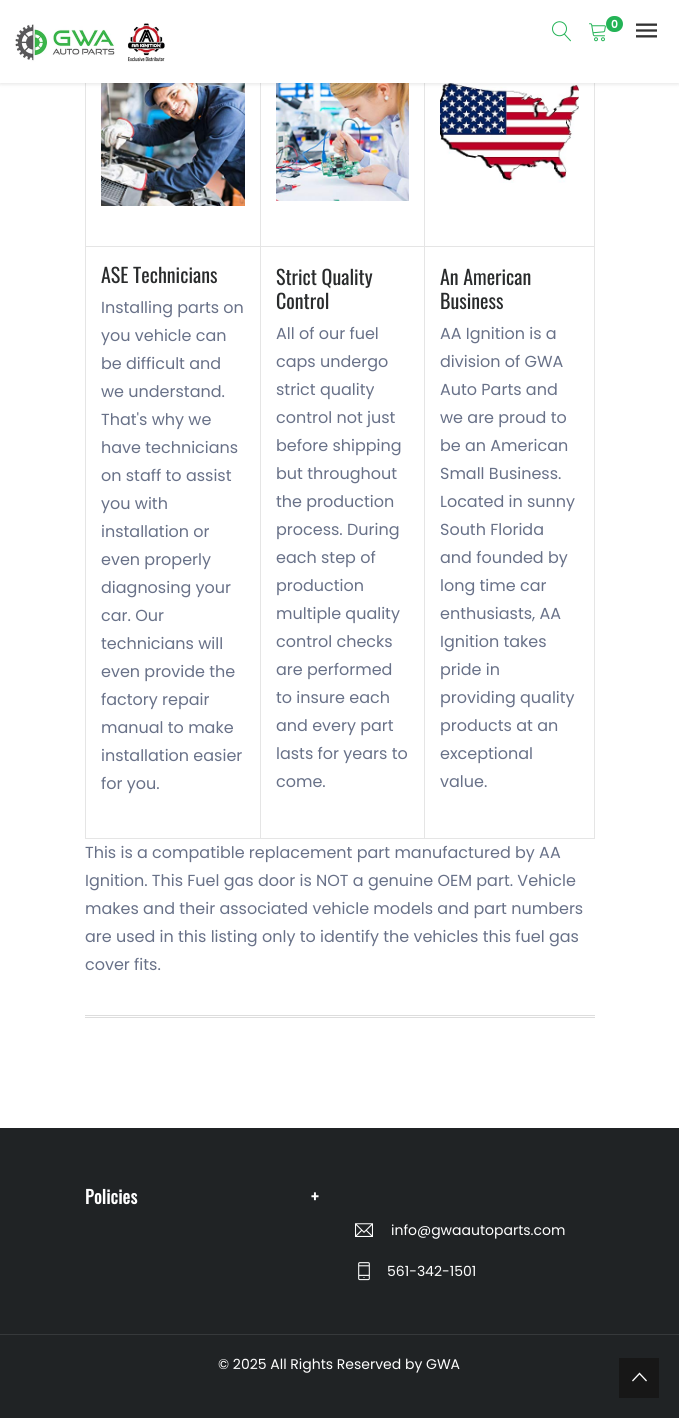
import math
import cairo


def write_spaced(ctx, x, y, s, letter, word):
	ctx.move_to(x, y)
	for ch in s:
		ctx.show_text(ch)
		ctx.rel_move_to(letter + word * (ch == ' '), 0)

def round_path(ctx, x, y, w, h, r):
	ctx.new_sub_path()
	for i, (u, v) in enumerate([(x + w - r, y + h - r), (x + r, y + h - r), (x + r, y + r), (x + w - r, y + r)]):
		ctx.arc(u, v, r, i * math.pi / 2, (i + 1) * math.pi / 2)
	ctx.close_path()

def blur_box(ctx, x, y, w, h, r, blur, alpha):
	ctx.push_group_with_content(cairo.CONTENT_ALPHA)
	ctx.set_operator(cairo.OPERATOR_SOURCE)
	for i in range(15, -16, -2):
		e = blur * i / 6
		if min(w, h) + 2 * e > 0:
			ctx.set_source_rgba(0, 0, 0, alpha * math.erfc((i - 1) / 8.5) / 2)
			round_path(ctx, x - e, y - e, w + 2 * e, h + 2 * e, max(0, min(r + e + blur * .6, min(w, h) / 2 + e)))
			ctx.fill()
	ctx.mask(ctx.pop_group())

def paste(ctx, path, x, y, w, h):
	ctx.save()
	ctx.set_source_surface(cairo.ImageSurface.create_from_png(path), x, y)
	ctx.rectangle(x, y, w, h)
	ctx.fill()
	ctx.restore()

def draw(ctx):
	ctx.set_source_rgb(1, 1, 1)
	ctx.paint()
	paste(ctx, 'media/5.png', 101, 83, 144, 123)
	ctx.set_source_rgb(0.898, 0.898, 0.898)
	ctx.rectangle(424, 246, 171, 1)
	ctx.rectangle(594, 83, 1, 756)
	ctx.rectangle(424, 838, 171, 1)
	ctx.rectangle(424, 246, 1, 593)
	ctx.rectangle(260, 246, 165, 1)
	ctx.rectangle(260, 838, 165, 1)
	ctx.rectangle(260, 246, 1, 593)
	ctx.rectangle(85, 246, 176, 1)
	ctx.rectangle(260, 83, 1, 164)
	ctx.fill()
	paste(ctx, 'media/6.png', 276, 83, 133, 118)
	ctx.rectangle(424, 83, 1, 164)
	ctx.fill()
	paste(ctx, 'media/7.png', 440, 83, 139, 100)
	ctx.rectangle(85, 838, 176, 1)
	ctx.fill()
	ctx.rectangle(85, 83, 1, 756)
	ctx.fill()
	ctx.set_source_rgb(0, 0, 0)
	blur_box(ctx, 0, 0, 679, 83, 0, 2.5, 0.15)
	ctx.set_source_rgb(1, 1, 1)
	ctx.rectangle(0, 0, 679, 83)
	ctx.fill()
	paste(ctx, 'media/1.png', 15, 23, 150, 39)
	paste(ctx, 'media/2.png', 552, 21, 19, 21)
	paste(ctx, 'media/3.png', 589, 23, 17, 19)
	ctx.set_source_rgb(0.137, 0.702, 0.337)
	round_path(ctx, 606, 16, 17, 16, 8)
	ctx.fill()
	ctx.select_font_face('Poppins SemiBold')
	ctx.set_font_size(11)
	ctx.set_source_rgb(1, 1, 1)
	ctx.move_to(611, 28)
	ctx.show_text('0')
	paste(ctx, 'media/4.png', 636, 23, 21, 15)
	ctx.select_font_face('Oswald')
	ctx.set_font_size(20)
	ctx.set_source_rgb(0.161, 0.169, 0.173)
	ctx.move_to(101, 283)
	ctx.show_text('ASE Technicians')
	ctx.select_font_face('Poppins')
	ctx.set_font_size(16)
	ctx.set_source_rgb(0.408, 0.443, 0.533)
	for x, y, s in [
		(101, 313, 'Installing parts on'),
		(101, 341, 'you vehicle can'),
		(101, 369, 'be difficult and'),
		(101, 397, 'we understand.'),
		(101, 425, 'That\'s why we'),
		(101, 453, 'have technicians'),
		(101, 481, 'on staff to assist'),
		(101, 509, 'you with'),
		(101, 537, 'installation or'),
		(101, 565, 'even properly'),
		(101, 593, 'diagnosing your'),
		(101, 621, 'car. Our'),
		(101, 649, 'technicians will'),
		(101, 677, 'even provide the'),
		(101, 705, 'factory repair'),
		(101, 733, 'manual to make'),
		(101, 761, 'installation easier'),
		(101, 789, 'for you.'),
	]:
		ctx.move_to(x, y)
		ctx.show_text(s)
	ctx.select_font_face('Oswald')
	ctx.set_font_size(20)
	ctx.set_source_rgb(0.161, 0.169, 0.173)
	ctx.move_to(276, 285)
	ctx.show_text('Strict Quality')
	ctx.move_to(276, 309)
	ctx.show_text('Control')
	ctx.select_font_face('Poppins')
	ctx.set_font_size(16)
	ctx.set_source_rgb(0.408, 0.443, 0.533)
	for x, y, s in [
		(276, 339, 'All of our fuel'),
		(276, 367, 'caps undergo'),
		(276, 395, 'strict quality'),
		(276, 423, 'control not just'),
		(276, 451, 'before shipping'),
		(276, 479, 'but throughout'),
		(276, 507, 'the production'),
		(276, 535, 'process. During'),
		(276, 563, 'each step of'),
		(276, 591, 'production'),
		(276, 619, 'multiple quality'),
		(276, 647, 'control checks'),
		(276, 675, 'are performed'),
		(276, 703, 'to insure each'),
		(276, 731, 'and every part'),
		(276, 759, 'lasts for years to'),
		(276, 787, 'come.'),
	]:
		ctx.move_to(x, y)
		ctx.show_text(s)
	ctx.select_font_face('Oswald')
	ctx.set_font_size(20)
	ctx.set_source_rgb(0.161, 0.169, 0.173)
	ctx.move_to(440, 285)
	ctx.show_text('An American')
	ctx.move_to(440, 309)
	ctx.show_text('Business')
	ctx.select_font_face('Poppins')
	ctx.set_font_size(16)
	ctx.set_source_rgb(0.408, 0.443, 0.533)
	for x, y, s in [
		(440, 339, 'AA Ignition is a'),
		(440, 367, 'division of GWA'),
		(440, 395, 'Auto Parts and'),
		(440, 423, 'we are proud to'),
		(440, 451, 'be an American'),
		(440, 479, 'Small Business.'),
		(440, 507, 'Located in sunny'),
		(440, 535, 'South Florida'),
		(440, 563, 'and founded by'),
		(440, 591, 'long time car'),
		(440, 619, 'enthusiasts, AA'),
		(440, 647, 'Ignition takes'),
		(440, 675, 'pride in'),
		(440, 703, 'providing quality'),
		(440, 731, 'products at an'),
		(440, 759, 'exceptional'),
		(440, 787, 'value.'),
		(85, 858, 'This is a compatible replacement part manufactured by AA'),
		(85, 886, 'Ignition. This Fuel gas door is NOT a genuine OEM part. Vehicle'),
		(85, 914, 'makes and their associated vehicle models and part numbers'),
		(85, 942, 'are used in this listing only to identify the vehicles this fuel gas'),
		(85, 970, 'cover fits.'),
	]:
		ctx.move_to(x, y)
		ctx.show_text(s)
	ctx.set_source_rgb(0.867, 0.867, 0.867)
	ctx.rectangle(85, 1015, 510, 1)
	ctx.rectangle(85, 1017, 510, 1)
	ctx.fill()
	ctx.set_source_rgb(0.125, 0.137, 0.145)
	ctx.rectangle(0, 1128, 679, 290)
	ctx.fill()
	ctx.select_font_face('Oswald', cairo.FONT_SLANT_NORMAL, cairo.FONT_WEIGHT_BOLD)
	ctx.set_font_size(18)
	ctx.set_source_rgb(1, 1, 1)
	write_spaced(ctx, 85, 1204, 'Policies', 0.25, 0)
	write_spaced(ctx, 311, 1204, '+', 0.25, 0)
	paste(ctx, 'media/8.png', 355, 1223, 18, 14)
	ctx.select_font_face('Poppins')
	ctx.set_font_size(14)
	ctx.move_to(391, 1235)
	ctx.show_text('info@gwaautoparts.com')
	paste(ctx, 'media/9.png', 358, 1262, 12, 19)
	ctx.move_to(387, 1276)
	ctx.show_text('561-342-1501')
	ctx.set_source_rgb(0.212, 0.224, 0.231)
	ctx.rectangle(0, 1334, 679, 1)
	ctx.fill()
	ctx.set_source_rgb(1, 1, 1)
	ctx.move_to(218, 1369)
	ctx.show_text('© 2025 All Rights Reserved by GWA')
	ctx.set_source_rgb(0.09, 0.09, 0.09)
	ctx.rectangle(619, 1358, 40, 40)
	ctx.fill()
	paste(ctx, 'media/10.png', 632, 1372, 15, 10)


surface = cairo.ImageSurface(cairo.FORMAT_RGB24, 679, 1418)
ctx = cairo.Context(surface)
options = cairo.FontOptions()
options.set_hint_metrics(cairo.HINT_METRICS_OFF)
options.set_hint_style(cairo.HINT_STYLE_NONE)
ctx.set_font_options(options)
ctx.set_miter_limit(4)
draw(ctx)
surface.write_to_png('image.png')
